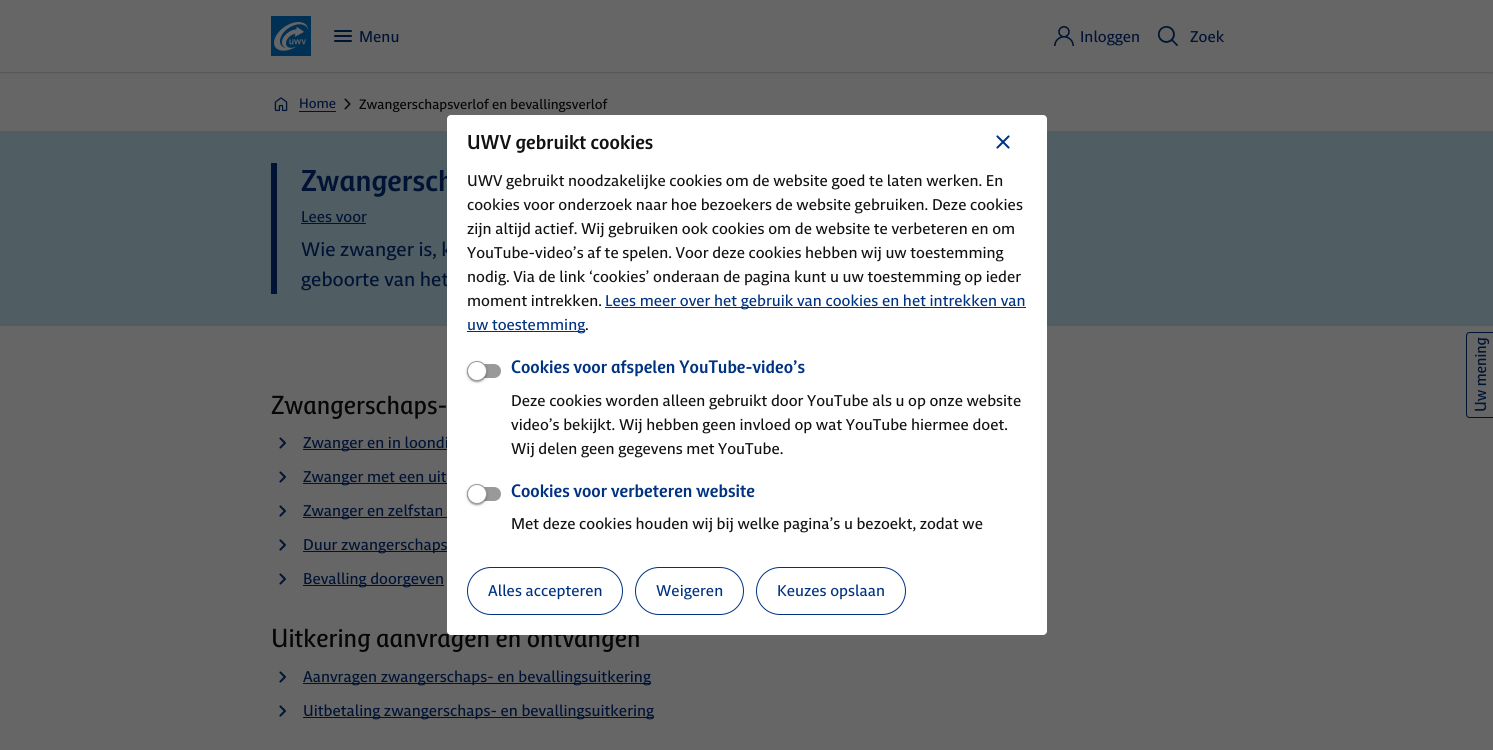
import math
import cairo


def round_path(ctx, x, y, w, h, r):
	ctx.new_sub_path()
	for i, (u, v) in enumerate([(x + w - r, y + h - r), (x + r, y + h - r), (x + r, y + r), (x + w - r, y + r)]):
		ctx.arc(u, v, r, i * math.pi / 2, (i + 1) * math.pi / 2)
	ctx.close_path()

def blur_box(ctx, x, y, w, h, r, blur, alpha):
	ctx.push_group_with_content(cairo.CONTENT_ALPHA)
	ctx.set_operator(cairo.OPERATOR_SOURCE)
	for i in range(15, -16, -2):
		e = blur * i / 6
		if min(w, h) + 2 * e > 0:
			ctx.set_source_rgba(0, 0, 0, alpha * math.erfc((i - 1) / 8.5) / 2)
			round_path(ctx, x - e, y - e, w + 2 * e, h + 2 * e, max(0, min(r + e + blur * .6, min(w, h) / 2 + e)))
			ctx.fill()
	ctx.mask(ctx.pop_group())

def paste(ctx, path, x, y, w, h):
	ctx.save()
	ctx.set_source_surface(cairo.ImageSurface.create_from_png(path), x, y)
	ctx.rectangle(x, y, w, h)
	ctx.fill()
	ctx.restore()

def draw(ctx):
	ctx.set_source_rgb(0.4, 0.4, 0.4)
	ctx.paint()
	ctx.save()
	ctx.rectangle(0, 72, 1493, 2)
	ctx.clip()
	ctx.set_source_rgb(0.341, 0.341, 0.341)
	blur_box(ctx, 0, 1, 1493, 72, 0, 0.5, 1)
	ctx.restore()
	paste(ctx, 'media/1.png', 271, 16, 40, 40)
	paste(ctx, 'media/2.png', 334, 30, 18, 12)
	ctx.select_font_face('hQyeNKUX')
	ctx.set_font_size(16)
	ctx.set_source_rgb(0, 0.078, 0.204)
	ctx.move_to(359, 42)
	ctx.show_text('Menu')
	paste(ctx, 'media/3.png', 1054, 26, 20, 20)
	ctx.move_to(1080, 42)
	ctx.show_text('Inloggen')
	paste(ctx, 'media/4.png', 1157, 26, 21, 20)
	ctx.move_to(1190, 42)
	ctx.show_text('Zoek')
	paste(ctx, 'media/5.png', 274, 97, 14, 15)
	ctx.set_font_size(14)
	ctx.move_to(299, 108)
	ctx.show_text('Home')
	ctx.rectangle(299, 111, 37, 1)
	ctx.fill()
	paste(ctx, 'media/6.png', 344, 98, 7, 12)
	ctx.set_source_rgb(0.027, 0.027, 0.027)
	ctx.move_to(359, 109)
	ctx.show_text('Zwangerschapsverlof en bevallingsverlof')
	ctx.set_source_rgb(0.314, 0.365, 0.388)
	ctx.rectangle(0, 131, 1493, 195)
	ctx.fill()
	ctx.set_source_rgb(0, 0.078, 0.204)
	ctx.rectangle(271, 163, 6, 131)
	ctx.fill()
	ctx.select_font_face('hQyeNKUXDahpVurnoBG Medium')
	ctx.set_font_size(30)
	ctx.move_to(301, 191)
	ctx.show_text('Zwangersch')
	ctx.select_font_face('hQyeNKUX')
	ctx.set_font_size(16)
	ctx.move_to(301, 222)
	ctx.show_text('Lees voor')
	ctx.rectangle(301, 223, 65, 1)
	ctx.fill()
	ctx.set_font_size(20)
	ctx.move_to(301, 256)
	ctx.show_text('Wie zwanger is, k')
	ctx.move_to(301, 286)
	ctx.show_text('geboorte van het')
	ctx.select_font_face('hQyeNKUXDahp')
	ctx.set_font_size(26)
	ctx.set_source_rgb(0.027, 0.027, 0.027)
	ctx.move_to(271, 414)
	ctx.show_text('Zwangerschaps-')
	paste(ctx, 'media/7.png', 279, 437, 7, 12)
	ctx.set_source_rgb(0, 0.078, 0.204)
	ctx.rectangle(303, 449, 144, 1)
	ctx.fill()
	ctx.select_font_face('hQyeNKUX')
	ctx.set_font_size(16)
	ctx.move_to(303, 448)
	ctx.show_text('Zwanger en in loondi')
	paste(ctx, 'media/7.png', 279, 471, 7, 12)
	ctx.rectangle(303, 483, 144, 1)
	ctx.fill()
	ctx.move_to(303, 482)
	ctx.show_text('Zwanger met een uit')
	paste(ctx, 'media/7.png', 279, 505, 7, 12)
	ctx.rectangle(303, 517, 144, 1)
	ctx.fill()
	ctx.move_to(303, 516)
	ctx.show_text('Zwanger en zelfstan')
	paste(ctx, 'media/7.png', 279, 539, 7, 12)
	ctx.rectangle(303, 551, 144, 1)
	ctx.fill()
	ctx.move_to(303, 550)
	ctx.show_text('Duur zwangerschaps')
	paste(ctx, 'media/7.png', 279, 573, 7, 12)
	ctx.rectangle(303, 585, 141, 1)
	ctx.fill()
	ctx.move_to(303, 584)
	ctx.show_text('Bevalling doorgeven')
	ctx.select_font_face('hQyeNKUXDahp')
	ctx.set_font_size(26)
	ctx.set_source_rgb(0.027, 0.027, 0.027)
	ctx.move_to(271, 647)
	ctx.show_text('Uitkering aanvragen en ontvangen')
	paste(ctx, 'media/7.png', 279, 671, 7, 12)
	ctx.set_source_rgb(0, 0.078, 0.204)
	ctx.rectangle(303, 683, 347, 1)
	ctx.fill()
	ctx.select_font_face('hQyeNKUX')
	ctx.set_font_size(16)
	ctx.move_to(303, 682)
	ctx.show_text('Aanvragen zwangerschaps- en bevallingsuitkering')
	paste(ctx, 'media/7.png', 279, 705, 7, 12)
	ctx.rectangle(303, 717, 351, 1)
	ctx.fill()
	ctx.move_to(303, 716)
	ctx.show_text('Uitbetaling zwangerschaps- en bevallingsuitkering')
	ctx.set_source_rgb(1, 1, 1)
	round_path(ctx, 447, 115, 600, 520, 4)
	ctx.fill()
	ctx.select_font_face('hQyeNKUXDahpVurnoBG Medium')
	ctx.set_font_size(20)
	ctx.set_source_rgb(0.071, 0.071, 0.071)
	ctx.move_to(467, 149)
	ctx.show_text('UWV gebruikt cookies')
	paste(ctx, 'media/8.png', 996, 135, 14, 14)
	ctx.select_font_face('hQyeNKUX')
	ctx.set_font_size(16)
	for x, y, s in [
		(467, 186, 'UWV gebruikt noodzakelijke cookies om de website goed te laten werken. En'),
		(467, 210, 'cookies voor onderzoek naar hoe bezoekers de website gebruiken. Deze cookies'),
		(467, 234, 'zijn altijd actief. Wij gebruiken ook cookies om de website te verbeteren en om'),
		(467, 258, 'YouTube-video’s af te spelen. Voor deze cookies hebben wij uw toestemming'),
		(467, 282, 'nodig. Via de link ‘cookies’ onderaan de pagina kunt u uw toestemming op ieder'),
		(467, 306, 'moment intrekken.'),
	]:
		ctx.move_to(x, y)
		ctx.show_text(s)
	ctx.set_source_rgb(0, 0.196, 0.51)
	ctx.rectangle(605, 307, 421, 1)
	ctx.fill()
	ctx.move_to(605, 306)
	ctx.show_text('Lees meer over het gebruik van cookies en het intrekken van')
	ctx.rectangle(467, 331, 118, 1)
	ctx.fill()
	ctx.move_to(467, 330)
	ctx.show_text('uw toestemming')
	ctx.set_source_rgb(0.071, 0.071, 0.071)
	ctx.move_to(585, 330)
	ctx.show_text('.')
	ctx.set_source_rgb(0.6, 0.6, 0.6)
	round_path(ctx, 467, 364, 34, 14, 7)
	ctx.fill()
	ctx.set_source_rgb(0, 0, 0)
	blur_box(ctx, 467, 362, 20, 20, 10, 1.5, 0.2)
	blur_box(ctx, 468, 364, 18, 18, 9, 0.5, 0.12)
	blur_box(ctx, 467, 362, 20, 20, 10, 0.5, 0.14)
	ctx.set_source_rgb(1, 1, 1)
	ctx.arc(477, 371, 9.5, 0, 2 * math.pi)
	ctx.fill_preserve()
	ctx.set_source_rgb(0.6, 0.6, 0.6)
	ctx.set_line_width(1)
	ctx.stroke()
	ctx.select_font_face('hQyeNKUXDahpVurnoBG Medium')
	ctx.set_font_size(18)
	ctx.set_source_rgb(0, 0.196, 0.51)
	ctx.move_to(511, 373)
	ctx.show_text('Cookies voor afspelen YouTube-video’s')
	ctx.select_font_face('hQyeNKUX')
	ctx.set_font_size(16)
	ctx.set_source_rgb(0.071, 0.071, 0.071)
	for x, y, s in [
		(511, 406, 'Deze cookies worden alleen gebruikt door YouTube als u op onze website'),
		(511, 430, 'video’s bekijkt. Wij hebben geen invloed op wat YouTube hiermee doet.'),
		(511, 454, 'Wij delen geen gegevens met YouTube.'),
	]:
		ctx.move_to(x, y)
		ctx.show_text(s)
	ctx.set_source_rgb(0.6, 0.6, 0.6)
	round_path(ctx, 467, 487, 34, 14, 7)
	ctx.fill()
	ctx.set_source_rgb(0, 0, 0)
	blur_box(ctx, 467, 485, 20, 20, 10, 1.5, 0.2)
	blur_box(ctx, 468, 487, 18, 18, 9, 0.5, 0.12)
	blur_box(ctx, 467, 485, 20, 20, 10, 0.5, 0.14)
	ctx.set_source_rgb(1, 1, 1)
	ctx.arc(477, 494, 9.5, 0, 2 * math.pi)
	ctx.fill_preserve()
	ctx.set_source_rgb(0.6, 0.6, 0.6)
	ctx.stroke()
	ctx.select_font_face('hQyeNKUXDahpVurnoBG Medium')
	ctx.set_font_size(18)
	ctx.set_source_rgb(0, 0.196, 0.51)
	ctx.move_to(511, 497)
	ctx.show_text('Cookies voor verbeteren website')
	ctx.select_font_face('hQyeNKUX')
	ctx.set_font_size(16)
	ctx.set_source_rgb(0.071, 0.071, 0.071)
	ctx.move_to(511, 529)
	ctx.show_text('Met deze cookies houden wij bij welke pagina’s u bezoekt, zodat we')
	round_path(ctx, 467.5, 567.5, 155, 47, 23.5)
	ctx.set_source_rgb(0, 0.196, 0.51)
	ctx.stroke()
	ctx.move_to(488, 596)
	ctx.show_text('Alles accepteren')
	round_path(ctx, 635.5, 567.5, 108, 47, 23.5)
	ctx.stroke()
	ctx.move_to(656, 596)
	ctx.show_text('Weigeren')
	round_path(ctx, 756.5, 567.5, 149, 47, 23.5)
	ctx.stroke()
	ctx.move_to(777, 596)
	ctx.show_text('Keuzes opslaan')
	ctx.set_source_rgb(0, 0.078, 0.204)
	ctx.set_fill_rule(cairo.FILL_RULE_EVEN_ODD)
	ctx.new_path()
	ctx.move_to(1466, 414)
	ctx.line_to(1466, 336)
	ctx.curve_to(1466, 333, 1468, 332, 1470, 332)
	ctx.line_to(1493, 332)
	ctx.line_to(1493, 418)
	ctx.line_to(1470, 418)
	ctx.curve_to(1468, 418, 1466, 417, 1466, 414)
	ctx.close_path()
	ctx.move_to(1467, 414)
	ctx.line_to(1467, 336)
	ctx.curve_to(1467, 334, 1468, 333, 1470, 333)
	ctx.line_to(1493, 333)
	ctx.line_to(1493, 417)
	ctx.line_to(1470, 417)
	ctx.curve_to(1468, 417, 1467, 416, 1467, 414)
	ctx.close_path()
	ctx.fill()
	ctx.select_font_face('hQyeNKUXDahp')
	ctx.save()
	ctx.translate(1486, 412)
	ctx.rotate(-90 * math.pi / 180)
	ctx.move_to(0, 0)
	ctx.show_text('Uw mening')
	ctx.restore()


surface = cairo.ImageSurface(cairo.FORMAT_RGB24, 1493, 750)
ctx = cairo.Context(surface)
options = cairo.FontOptions()
options.set_hint_metrics(cairo.HINT_METRICS_OFF)
options.set_hint_style(cairo.HINT_STYLE_NONE)
ctx.set_font_options(options)
ctx.set_miter_limit(4)
draw(ctx)
surface.write_to_png('image.png')
